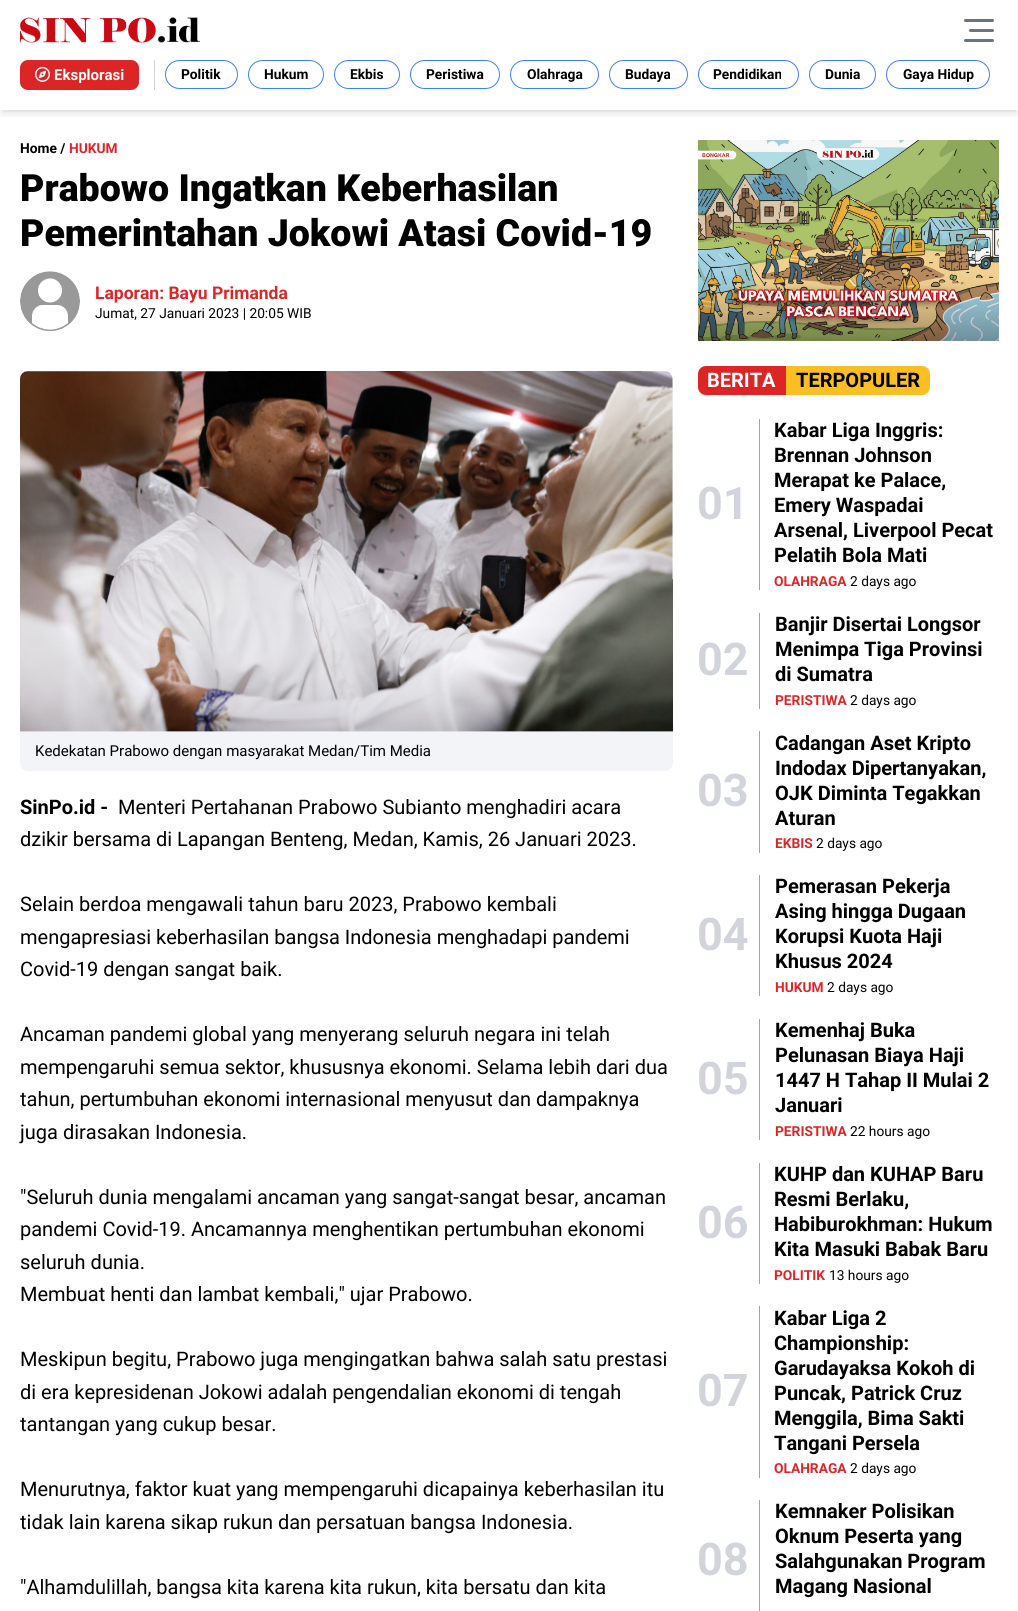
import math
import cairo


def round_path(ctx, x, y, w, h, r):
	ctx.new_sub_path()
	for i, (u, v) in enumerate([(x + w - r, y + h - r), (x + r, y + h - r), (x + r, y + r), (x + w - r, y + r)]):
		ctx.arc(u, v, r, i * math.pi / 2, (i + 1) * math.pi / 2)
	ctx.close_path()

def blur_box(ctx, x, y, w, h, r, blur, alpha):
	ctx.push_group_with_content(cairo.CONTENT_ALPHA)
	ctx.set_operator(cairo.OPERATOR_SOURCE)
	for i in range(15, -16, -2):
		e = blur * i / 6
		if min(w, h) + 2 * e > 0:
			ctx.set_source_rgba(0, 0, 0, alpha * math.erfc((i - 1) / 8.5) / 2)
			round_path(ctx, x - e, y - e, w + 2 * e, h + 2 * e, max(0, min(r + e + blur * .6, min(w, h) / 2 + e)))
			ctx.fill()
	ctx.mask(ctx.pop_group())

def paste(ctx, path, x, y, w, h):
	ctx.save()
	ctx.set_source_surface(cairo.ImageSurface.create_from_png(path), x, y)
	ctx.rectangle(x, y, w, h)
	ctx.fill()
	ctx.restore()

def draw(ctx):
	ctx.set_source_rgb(1, 1, 1)
	ctx.paint()
	ctx.save()
	ctx.rectangle(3, 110, 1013, 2)
	ctx.clip()
	ctx.set_source_rgb(0, 0, 0)
	blur_box(ctx, 3, 5, 1013, 105, 0, 2.5, 0.1)
	ctx.restore()
	ctx.save()
	ctx.rectangle(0, 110, 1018, 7)
	ctx.clip()
	ctx.set_source_rgb(0, 0, 0)
	blur_box(ctx, 1, 6, 1017, 108, 0, 4, 0.1)
	ctx.restore()
	paste(ctx, 'media/1.png', 20, 17, 180, 26)
	ctx.set_source_rgb(0.42, 0.447, 0.502)
	round_path(ctx, 964, 19, 30, 3, 1.5)
	ctx.fill()
	round_path(ctx, 969, 29, 25, 3, 1.5)
	ctx.fill()
	round_path(ctx, 964, 39, 30, 3, 1.5)
	ctx.fill()
	ctx.set_source_rgb(0.863, 0.149, 0.149)
	round_path(ctx, 20, 60, 119, 30, 8)
	ctx.fill()
	paste(ctx, 'media/2.png', 35, 66, 15, 16)
	ctx.select_font_face('Roboto', cairo.FONT_SLANT_NORMAL, cairo.FONT_WEIGHT_BOLD)
	ctx.set_font_size(15)
	ctx.set_source_rgb(1, 1, 1)
	ctx.move_to(54, 80)
	ctx.show_text('Eksplorasi')
	ctx.set_source_rgb(0.82, 0.835, 0.859)
	ctx.rectangle(154, 60, 1, 30)
	ctx.fill()
	round_path(ctx, 165.5, 60.5, 72, 28, 14)
	ctx.set_source_rgb(0.231, 0.51, 0.965)
	ctx.set_line_width(1)
	ctx.stroke()
	ctx.set_font_size(13.75)
	ctx.set_source_rgb(0, 0, 0)
	ctx.move_to(181, 79)
	ctx.show_text('Politik')
	round_path(ctx, 248.5, 60.5, 75, 28, 14)
	ctx.set_source_rgb(0.231, 0.51, 0.965)
	ctx.stroke()
	ctx.set_source_rgb(0, 0, 0)
	ctx.move_to(264, 79)
	ctx.show_text('Hukum')
	round_path(ctx, 334.5, 60.5, 65, 28, 14)
	ctx.set_source_rgb(0.231, 0.51, 0.965)
	ctx.stroke()
	ctx.set_source_rgb(0, 0, 0)
	ctx.move_to(350, 79)
	ctx.show_text('Ekbis')
	round_path(ctx, 410.5, 60.5, 89, 28, 14)
	ctx.set_source_rgb(0.231, 0.51, 0.965)
	ctx.stroke()
	ctx.set_source_rgb(0, 0, 0)
	ctx.move_to(426, 79)
	ctx.show_text('Peristiwa')
	round_path(ctx, 510.5, 60.5, 88, 28, 14)
	ctx.set_source_rgb(0.231, 0.51, 0.965)
	ctx.stroke()
	ctx.set_source_rgb(0, 0, 0)
	ctx.move_to(527, 79)
	ctx.show_text('Olahraga')
	round_path(ctx, 609.5, 60.5, 78, 28, 14)
	ctx.set_source_rgb(0.231, 0.51, 0.965)
	ctx.stroke()
	ctx.set_source_rgb(0, 0, 0)
	ctx.move_to(625, 79)
	ctx.show_text('Budaya')
	round_path(ctx, 698.5, 60.5, 100, 28, 14)
	ctx.set_source_rgb(0.231, 0.51, 0.965)
	ctx.stroke()
	ctx.set_source_rgb(0, 0, 0)
	ctx.move_to(713, 79)
	ctx.show_text('Pendidikan')
	round_path(ctx, 809.5, 60.5, 66, 28, 14)
	ctx.set_source_rgb(0.231, 0.51, 0.965)
	ctx.stroke()
	ctx.set_source_rgb(0, 0, 0)
	ctx.move_to(825, 79)
	ctx.show_text('Dunia')
	round_path(ctx, 886.5, 60.5, 103, 28, 14)
	ctx.set_source_rgb(0.231, 0.51, 0.965)
	ctx.stroke()
	ctx.set_source_rgb(0, 0, 0)
	ctx.move_to(903, 79)
	ctx.show_text('Gaya Hidup')
	ctx.move_to(20, 153)
	ctx.show_text('Home /')
	ctx.set_source_rgb(0.863, 0.149, 0.149)
	ctx.move_to(69, 153)
	ctx.show_text('HUKUM')
	ctx.select_font_face('Roboto Black')
	ctx.set_font_size(37.5)
	ctx.set_source_rgb(0, 0, 0)
	ctx.move_to(20, 201)
	ctx.show_text('Prabowo Ingatkan Keberhasilan')
	ctx.move_to(20, 246)
	ctx.show_text('Pemerintahan Jokowi Atasi Covid-19')
	ctx.set_source_rgb(0.953, 0.957, 0.965)
	ctx.new_path()
	ctx.arc(50, 301, 30, 0, 2 * math.pi)
	ctx.fill()
	paste(ctx, 'media/3.png', 20, 271, 60, 61)
	ctx.select_font_face('Roboto', cairo.FONT_SLANT_NORMAL, cairo.FONT_WEIGHT_BOLD)
	ctx.set_font_size(17.5)
	ctx.set_source_rgb(0.863, 0.149, 0.149)
	ctx.move_to(95, 299)
	ctx.show_text('Laporan: Bayu Primanda')
	ctx.select_font_face('Roboto')
	ctx.set_font_size(13.75)
	ctx.set_source_rgb(0, 0, 0)
	ctx.move_to(95, 318)
	ctx.show_text('Jumat, 27 Januari 2023 | 20:05 WIB')
	ctx.set_source_rgb(0.953, 0.957, 0.965)
	ctx.new_path()
	ctx.move_to(28, 371)
	ctx.line_to(665, 371)
	ctx.curve_to(669.5, 371, 673, 374.5, 673, 379)
	ctx.line_to(673, 731)
	ctx.line_to(20, 731)
	ctx.line_to(20, 379)
	ctx.curve_to(20, 374.5, 23.5, 371, 28, 371)
	ctx.close_path()
	ctx.fill()
	ctx.new_path()
	ctx.move_to(20, 731)
	ctx.line_to(673, 731)
	ctx.line_to(673, 763)
	ctx.curve_to(673, 767.5, 669.5, 771, 665, 771)
	ctx.line_to(28, 771)
	ctx.curve_to(23.5, 771, 20, 767.5, 20, 763)
	ctx.close_path()
	ctx.fill()
	paste(ctx, 'media/4.png', 20, 371, 653, 361)
	ctx.set_font_size(15)
	ctx.set_source_rgb(0, 0, 0)
	ctx.move_to(35, 756)
	ctx.show_text('Kedekatan Prabowo dengan masyarakat Medan/Tim Media')
	ctx.select_font_face('Roboto', cairo.FONT_SLANT_NORMAL, cairo.FONT_WEIGHT_BOLD)
	ctx.set_font_size(20)
	ctx.move_to(20, 814)
	ctx.show_text('SinPo.id -')
	ctx.select_font_face('Roboto')
	for x, y, s in [
		(118, 814, 'Menteri Pertahanan Prabowo Subianto menghadiri acara'),
		(20, 846, 'dzikir bersama di Lapangan Benteng, Medan, Kamis, 26 Januari 2023.'),
		(20, 911, 'Selain berdoa mengawali tahun baru 2023, Prabowo kembali'),
		(20, 944, 'mengapresiasi keberhasilan bangsa Indonesia menghadapi pandemi'),
		(20, 976, 'Covid-19 dengan sangat baik.'),
		(20, 1041, 'Ancaman pandemi global yang menyerang seluruh negara ini telah'),
		(20, 1074, 'mempengaruhi semua sektor, khususnya ekonomi. Selama lebih dari dua'),
		(20, 1106, 'tahun, pertumbuhan ekonomi internasional menyusut dan dampaknya'),
		(20, 1139, 'juga dirasakan Indonesia.'),
		(20, 1204, '"Seluruh dunia mengalami ancaman yang sangat-sangat besar, ancaman'),
		(20, 1236, 'pandemi Covid-19. Ancamannya menghentikan pertumbuhan ekonomi'),
		(20, 1269, 'seluruh dunia.'),
		(20, 1301, 'Membuat henti dan lambat kembali," ujar Prabowo.'),
		(20, 1366, 'Meskipun begitu, Prabowo juga mengingatkan bahwa salah satu prestasi'),
		(20, 1399, 'di era kepresidenan Jokowi adalah pengendalian ekonomi di tengah'),
		(20, 1431, 'tantangan yang cukup besar.'),
		(20, 1496, 'Menurutnya, faktor kuat yang mempengaruhi dicapainya keberhasilan itu'),
		(20, 1529, 'tidak lain karena sikap rukun dan persatuan bangsa Indonesia.'),
		(20, 1594, '"Alhamdulillah, bangsa kita karena kita rukun, kita bersatu dan kita'),
	]:
		ctx.move_to(x, y)
		ctx.show_text(s)
	paste(ctx, 'media/5.png', 698, 140, 301, 201)
	ctx.set_source_rgb(0.863, 0.149, 0.149)
	ctx.new_path()
	ctx.move_to(706, 366)
	ctx.line_to(786, 366)
	ctx.line_to(786, 395)
	ctx.line_to(706, 395)
	ctx.curve_to(701.5, 395, 698, 391.5, 698, 387)
	ctx.line_to(698, 374)
	ctx.curve_to(698, 369.5, 701.5, 366, 706, 366)
	ctx.close_path()
	ctx.fill()
	ctx.select_font_face('Roboto', cairo.FONT_SLANT_NORMAL, cairo.FONT_WEIGHT_BOLD)
	ctx.set_source_rgb(1, 1, 1)
	ctx.move_to(707, 387)
	ctx.show_text('BERITA')
	ctx.set_source_rgb(0.984, 0.749, 0.141)
	ctx.new_path()
	ctx.move_to(786, 366)
	ctx.line_to(922, 366)
	ctx.curve_to(926.5, 366, 930, 369.5, 930, 374)
	ctx.line_to(930, 387)
	ctx.curve_to(930, 391.5, 926.5, 395, 922, 395)
	ctx.line_to(786, 395)
	ctx.close_path()
	ctx.fill()
	ctx.set_source_rgb(0, 0, 0)
	ctx.move_to(796, 387)
	ctx.show_text('TERPOPULER')
	ctx.set_font_size(45)
	ctx.set_source_rgb(0.82, 0.835, 0.859)
	ctx.move_to(697, 519)
	ctx.show_text('01')
	ctx.set_source_rgb(0.612, 0.639, 0.686)
	ctx.rectangle(759, 419, 1, 171)
	ctx.fill()
	ctx.set_font_size(20)
	ctx.set_source_rgb(0, 0, 0)
	for x, y, s in [
		(774, 437, 'Kabar Liga Inggris:'),
		(774, 462, 'Brennan Johnson'),
		(774, 487, 'Merapat ke Palace,'),
		(774, 512, 'Emery Waspadai'),
		(774, 537, 'Arsenal, Liverpool Pecat'),
		(774, 562, 'Pelatih Bola Mati'),
	]:
		ctx.move_to(x, y)
		ctx.show_text(s)
	ctx.set_font_size(13.75)
	ctx.set_source_rgb(0.863, 0.149, 0.149)
	ctx.move_to(774, 586)
	ctx.show_text('OLAHRAGA')
	ctx.select_font_face('Roboto')
	ctx.set_source_rgb(0, 0, 0)
	ctx.move_to(850, 586)
	ctx.show_text('2 days ago')
	ctx.select_font_face('Roboto', cairo.FONT_SLANT_NORMAL, cairo.FONT_WEIGHT_BOLD)
	ctx.set_font_size(45)
	ctx.set_source_rgb(0.82, 0.835, 0.859)
	ctx.move_to(697, 675)
	ctx.show_text('02')
	ctx.set_source_rgb(0.612, 0.639, 0.686)
	ctx.rectangle(759, 613, 1, 96)
	ctx.fill()
	ctx.set_font_size(20)
	ctx.set_source_rgb(0, 0, 0)
	for x, y, s in [
		(775, 631, 'Banjir Disertai Longsor'),
		(775, 656, 'Menimpa Tiga Provinsi'),
		(775, 681, 'di Sumatra'),
	]:
		ctx.move_to(x, y)
		ctx.show_text(s)
	ctx.set_font_size(13.75)
	ctx.set_source_rgb(0.863, 0.149, 0.149)
	ctx.move_to(775, 705)
	ctx.show_text('PERISTIWA')
	ctx.select_font_face('Roboto')
	ctx.set_source_rgb(0, 0, 0)
	ctx.move_to(850, 705)
	ctx.show_text('2 days ago')
	ctx.select_font_face('Roboto', cairo.FONT_SLANT_NORMAL, cairo.FONT_WEIGHT_BOLD)
	ctx.set_font_size(45)
	ctx.set_source_rgb(0.82, 0.835, 0.859)
	ctx.move_to(697, 806)
	ctx.show_text('03')
	ctx.set_source_rgb(0.612, 0.639, 0.686)
	ctx.rectangle(759, 731, 1, 122)
	ctx.fill()
	ctx.set_font_size(20)
	ctx.set_source_rgb(0, 0, 0)
	for x, y, s in [
		(775, 750, 'Cadangan Aset Kripto'),
		(775, 775, 'Indodax Dipertanyakan,'),
		(775, 800, 'OJK Diminta Tegakkan'),
		(775, 825, 'Aturan'),
	]:
		ctx.move_to(x, y)
		ctx.show_text(s)
	ctx.set_font_size(13.75)
	ctx.set_source_rgb(0.863, 0.149, 0.149)
	ctx.move_to(775, 848)
	ctx.show_text('EKBIS')
	ctx.select_font_face('Roboto')
	ctx.set_source_rgb(0, 0, 0)
	ctx.move_to(816, 848)
	ctx.show_text('2 days ago')
	ctx.select_font_face('Roboto', cairo.FONT_SLANT_NORMAL, cairo.FONT_WEIGHT_BOLD)
	ctx.set_font_size(45)
	ctx.set_source_rgb(0.82, 0.835, 0.859)
	ctx.move_to(697, 950)
	ctx.show_text('04')
	ctx.set_source_rgb(0.612, 0.639, 0.686)
	ctx.rectangle(759, 875, 1, 121)
	ctx.fill()
	ctx.set_font_size(20)
	ctx.set_source_rgb(0, 0, 0)
	for x, y, s in [
		(775, 893, 'Pemerasan Pekerja'),
		(775, 918, 'Asing hingga Dugaan'),
		(775, 943, 'Korupsi Kuota Haji'),
		(775, 968, 'Khusus 2024'),
	]:
		ctx.move_to(x, y)
		ctx.show_text(s)
	ctx.set_font_size(13.75)
	ctx.set_source_rgb(0.863, 0.149, 0.149)
	ctx.move_to(775, 992)
	ctx.show_text('HUKUM')
	ctx.select_font_face('Roboto')
	ctx.set_source_rgb(0, 0, 0)
	ctx.move_to(827, 992)
	ctx.show_text('2 days ago')
	ctx.select_font_face('Roboto', cairo.FONT_SLANT_NORMAL, cairo.FONT_WEIGHT_BOLD)
	ctx.set_font_size(45)
	ctx.set_source_rgb(0.82, 0.835, 0.859)
	ctx.move_to(697, 1094)
	ctx.show_text('05')
	ctx.set_source_rgb(0.612, 0.639, 0.686)
	ctx.rectangle(759, 1019, 1, 121)
	ctx.fill()
	ctx.set_font_size(20)
	ctx.set_source_rgb(0, 0, 0)
	for x, y, s in [
		(775, 1037, 'Kemenhaj Buka'),
		(775, 1062, 'Pelunasan Biaya Haji'),
		(775, 1087, '1447 H Tahap II Mulai 2'),
		(775, 1112, 'Januari'),
	]:
		ctx.move_to(x, y)
		ctx.show_text(s)
	ctx.set_font_size(13.75)
	ctx.set_source_rgb(0.863, 0.149, 0.149)
	ctx.move_to(775, 1136)
	ctx.show_text('PERISTIWA')
	ctx.select_font_face('Roboto')
	ctx.set_source_rgb(0, 0, 0)
	ctx.move_to(850, 1136)
	ctx.show_text('22 hours ago')
	ctx.select_font_face('Roboto', cairo.FONT_SLANT_NORMAL, cairo.FONT_WEIGHT_BOLD)
	ctx.set_font_size(45)
	ctx.set_source_rgb(0.82, 0.835, 0.859)
	ctx.move_to(697, 1238)
	ctx.show_text('06')
	ctx.set_source_rgb(0.612, 0.639, 0.686)
	ctx.rectangle(759, 1163, 1, 121)
	ctx.fill()
	ctx.set_font_size(20)
	ctx.set_source_rgb(0, 0, 0)
	for x, y, s in [
		(774, 1181, 'KUHP dan KUHAP Baru'),
		(774, 1206, 'Resmi Berlaku,'),
		(774, 1231, 'Habiburokhman: Hukum'),
		(774, 1256, 'Kita Masuki Babak Baru'),
	]:
		ctx.move_to(x, y)
		ctx.show_text(s)
	ctx.set_font_size(13.75)
	ctx.set_source_rgb(0.863, 0.149, 0.149)
	ctx.move_to(774, 1280)
	ctx.show_text('POLITIK')
	ctx.select_font_face('Roboto')
	ctx.set_source_rgb(0, 0, 0)
	ctx.move_to(829, 1280)
	ctx.show_text('13 hours ago')
	ctx.select_font_face('Roboto', cairo.FONT_SLANT_NORMAL, cairo.FONT_WEIGHT_BOLD)
	ctx.set_font_size(45)
	ctx.set_source_rgb(0.82, 0.835, 0.859)
	ctx.move_to(697, 1406)
	ctx.show_text('07')
	ctx.set_source_rgb(0.612, 0.639, 0.686)
	ctx.rectangle(759, 1306, 1, 172)
	ctx.fill()
	ctx.set_font_size(20)
	ctx.set_source_rgb(0, 0, 0)
	for x, y, s in [
		(774, 1325, 'Kabar Liga 2'),
		(774, 1350, 'Championship:'),
		(774, 1375, 'Garudayaksa Kokoh di'),
		(774, 1400, 'Puncak, Patrick Cruz'),
		(774, 1425, 'Menggila, Bima Sakti'),
		(774, 1450, 'Tangani Persela'),
	]:
		ctx.move_to(x, y)
		ctx.show_text(s)
	ctx.set_font_size(13.75)
	ctx.set_source_rgb(0.863, 0.149, 0.149)
	ctx.move_to(774, 1473)
	ctx.show_text('OLAHRAGA')
	ctx.select_font_face('Roboto')
	ctx.set_source_rgb(0, 0, 0)
	ctx.move_to(850, 1473)
	ctx.show_text('2 days ago')
	ctx.select_font_face('Roboto', cairo.FONT_SLANT_NORMAL, cairo.FONT_WEIGHT_BOLD)
	ctx.set_font_size(45)
	ctx.set_source_rgb(0.82, 0.835, 0.859)
	ctx.move_to(697, 1575)
	ctx.show_text('08')
	ctx.set_source_rgb(0.612, 0.639, 0.686)
	ctx.rectangle(759, 1500, 1, 111)
	ctx.fill()
	ctx.set_font_size(20)
	ctx.set_source_rgb(0, 0, 0)
	for x, y, s in [
		(775, 1518, 'Kemnaker Polisikan'),
		(775, 1543, 'Oknum Peserta yang'),
		(775, 1568, 'Salahgunakan Program'),
		(775, 1593, 'Magang Nasional'),
	]:
		ctx.move_to(x, y)
		ctx.show_text(s)


surface = cairo.ImageSurface(cairo.FORMAT_RGB24, 1018, 1611)
ctx = cairo.Context(surface)
options = cairo.FontOptions()
options.set_hint_metrics(cairo.HINT_METRICS_OFF)
options.set_hint_style(cairo.HINT_STYLE_NONE)
ctx.set_font_options(options)
ctx.set_miter_limit(4)
draw(ctx)
surface.write_to_png('image.png')
